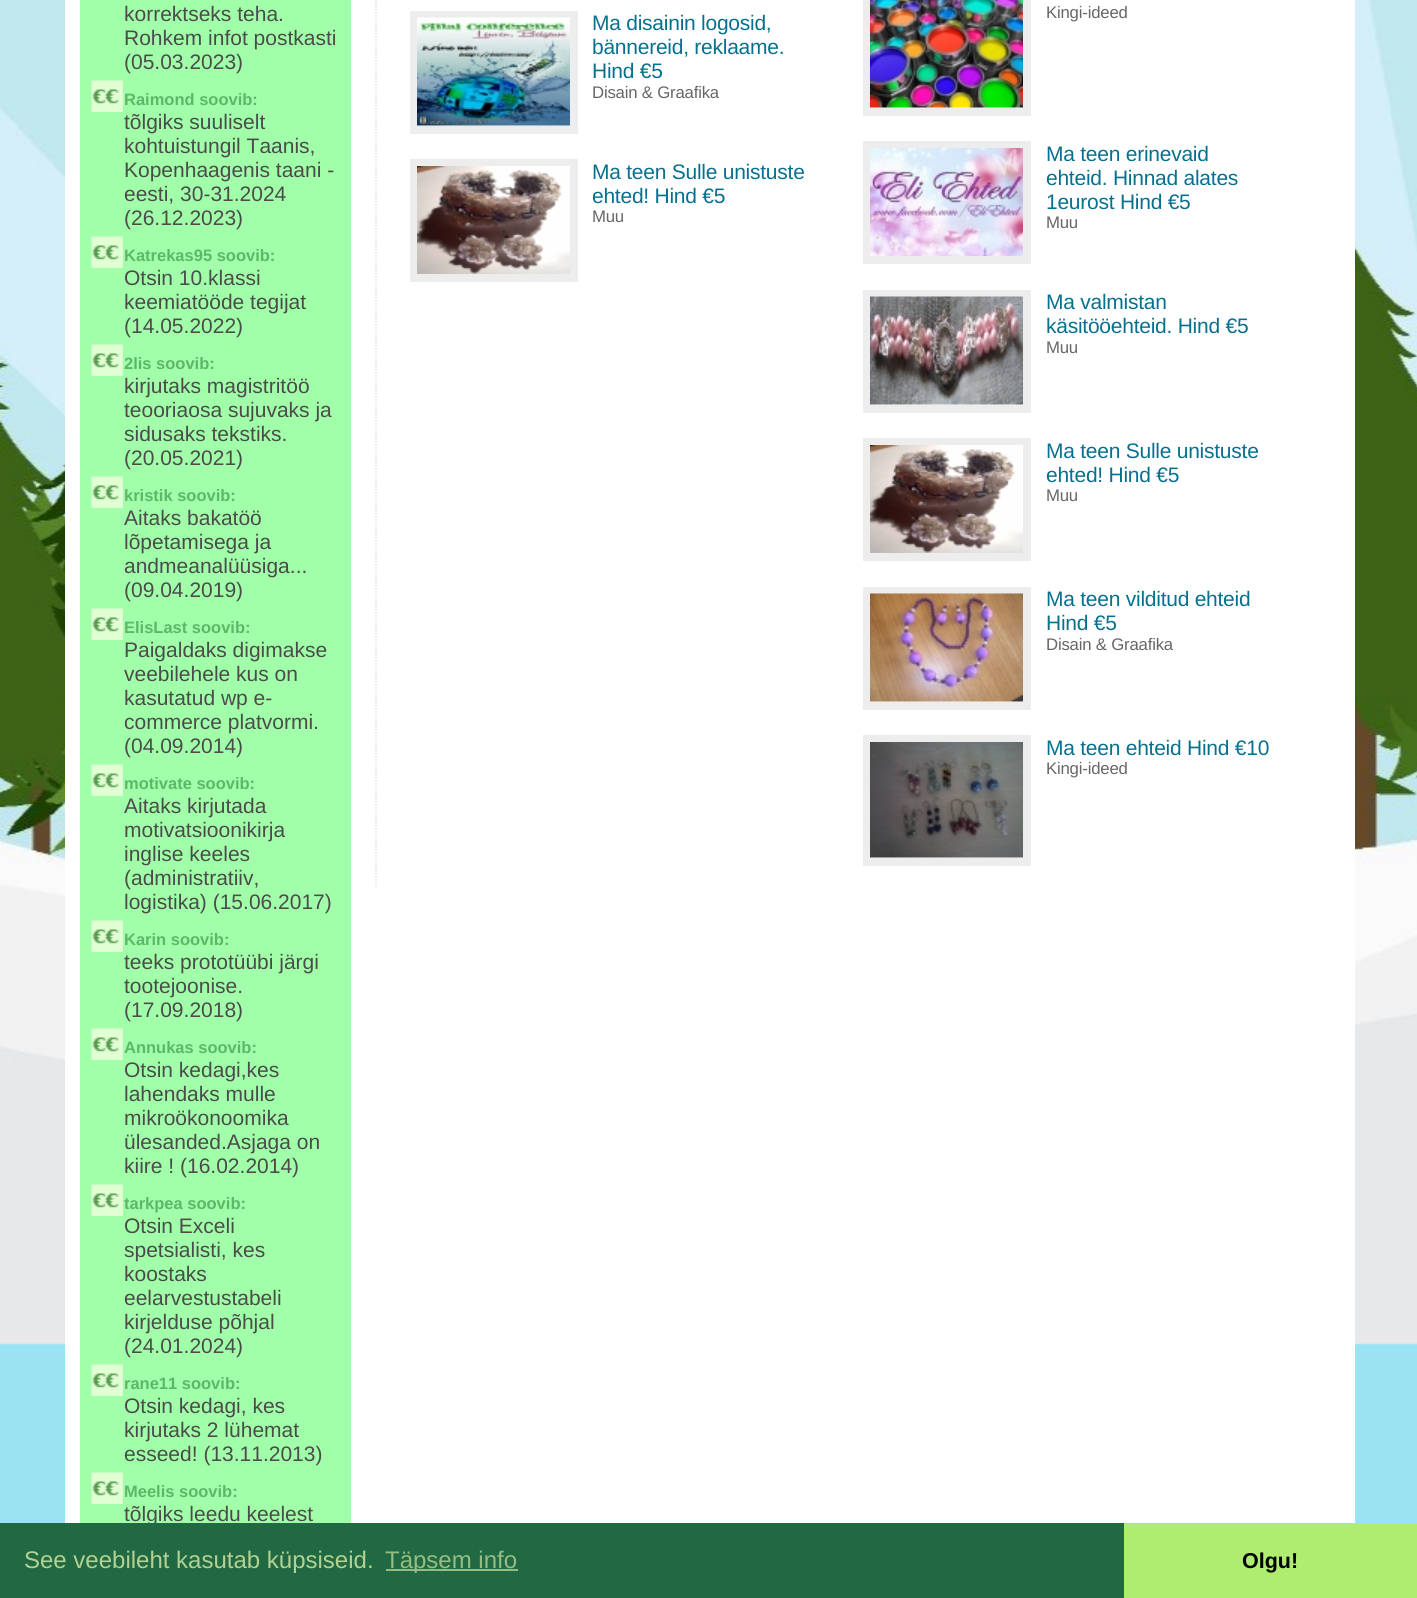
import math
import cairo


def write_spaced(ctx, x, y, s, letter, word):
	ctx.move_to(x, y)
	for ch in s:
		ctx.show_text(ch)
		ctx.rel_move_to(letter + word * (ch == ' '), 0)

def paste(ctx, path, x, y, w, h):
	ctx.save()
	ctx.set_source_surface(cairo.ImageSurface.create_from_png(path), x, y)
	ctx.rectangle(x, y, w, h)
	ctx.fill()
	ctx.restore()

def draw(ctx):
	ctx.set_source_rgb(0.604, 0.89, 0.949)
	ctx.paint()
	paste(ctx, 'media/1.png', 0, 0, 1417, 1345)
	ctx.set_source_rgb(1, 1, 1)
	ctx.rectangle(65, 0, 1290, 1523)
	ctx.fill()
	ctx.set_source_rgb(0.627, 1, 0.659)
	ctx.rectangle(80, 0, 271, 1523)
	ctx.fill()
	ctx.select_font_face('Liberation Sans')
	ctx.set_font_size(21)
	ctx.set_source_rgb(0.294, 0.294, 0.294)
	for x, y, s in [
		(124, 21, 'korrektseks teha.'),
		(124, 45, 'Rohkem infot postkasti'),
		(124, 69, '(05.03.2023)'),
	]:
		ctx.move_to(x, y)
		ctx.show_text(s)
	paste(ctx, 'media/2.png', 91, 80, 32, 32)
	ctx.select_font_face('Liberation Sans', cairo.FONT_SLANT_NORMAL, cairo.FONT_WEIGHT_BOLD)
	ctx.set_font_size(16.5)
	ctx.set_source_rgb(0.369, 0.718, 0.408)
	ctx.move_to(124, 105)
	ctx.show_text('Raimond soovib:')
	ctx.select_font_face('Liberation Sans')
	ctx.set_font_size(21)
	ctx.set_source_rgb(0.294, 0.294, 0.294)
	for x, y, s in [
		(124, 129, 'tõlgiks suuliselt'),
		(124, 153, 'kohtuistungil Taanis,'),
		(124, 177, 'Kopenhaagenis taani -'),
		(124, 201, 'eesti, 30-31.2024'),
		(124, 225, '(26.12.2023)'),
	]:
		ctx.move_to(x, y)
		ctx.show_text(s)
	paste(ctx, 'media/2.png', 91, 236, 32, 32)
	ctx.select_font_face('Liberation Sans', cairo.FONT_SLANT_NORMAL, cairo.FONT_WEIGHT_BOLD)
	ctx.set_font_size(16.5)
	ctx.set_source_rgb(0.369, 0.718, 0.408)
	ctx.move_to(124, 261)
	ctx.show_text('Katrekas95 soovib:')
	ctx.select_font_face('Liberation Sans')
	ctx.set_font_size(21)
	ctx.set_source_rgb(0.294, 0.294, 0.294)
	for x, y, s in [
		(124, 285, 'Otsin 10.klassi'),
		(124, 309, 'keemiatööde tegijat'),
		(124, 333, '(14.05.2022)'),
	]:
		ctx.move_to(x, y)
		ctx.show_text(s)
	paste(ctx, 'media/2.png', 91, 344, 32, 32)
	ctx.select_font_face('Liberation Sans', cairo.FONT_SLANT_NORMAL, cairo.FONT_WEIGHT_BOLD)
	ctx.set_font_size(16.5)
	ctx.set_source_rgb(0.369, 0.718, 0.408)
	ctx.move_to(124, 369)
	ctx.show_text('2lis soovib:')
	ctx.select_font_face('Liberation Sans')
	ctx.set_font_size(21)
	ctx.set_source_rgb(0.294, 0.294, 0.294)
	for x, y, s in [
		(124, 393, 'kirjutaks magistritöö'),
		(124, 417, 'teooriaosa sujuvaks ja'),
		(124, 441, 'sidusaks tekstiks.'),
		(124, 465, '(20.05.2021)'),
	]:
		ctx.move_to(x, y)
		ctx.show_text(s)
	paste(ctx, 'media/2.png', 91, 476, 32, 32)
	ctx.select_font_face('Liberation Sans', cairo.FONT_SLANT_NORMAL, cairo.FONT_WEIGHT_BOLD)
	ctx.set_font_size(16.5)
	ctx.set_source_rgb(0.369, 0.718, 0.408)
	ctx.move_to(124, 501)
	ctx.show_text('kristik soovib:')
	ctx.select_font_face('Liberation Sans')
	ctx.set_font_size(21)
	ctx.set_source_rgb(0.294, 0.294, 0.294)
	for x, y, s in [
		(124, 525, 'Aitaks bakatöö'),
		(124, 549, 'lõpetamisega ja'),
		(124, 573, 'andmeanalüüsiga...'),
		(124, 597, '(09.04.2019)'),
	]:
		ctx.move_to(x, y)
		ctx.show_text(s)
	paste(ctx, 'media/2.png', 91, 608, 32, 32)
	ctx.select_font_face('Liberation Sans', cairo.FONT_SLANT_NORMAL, cairo.FONT_WEIGHT_BOLD)
	ctx.set_font_size(16.5)
	ctx.set_source_rgb(0.369, 0.718, 0.408)
	ctx.move_to(124, 633)
	ctx.show_text('ElisLast soovib:')
	ctx.select_font_face('Liberation Sans')
	ctx.set_font_size(21)
	ctx.set_source_rgb(0.294, 0.294, 0.294)
	for x, y, s in [
		(124, 657, 'Paigaldaks digimakse'),
		(124, 681, 'veebilehele kus on'),
		(124, 705, 'kasutatud wp e-'),
		(124, 729, 'commerce platvormi.'),
		(124, 753, '(04.09.2014)'),
	]:
		ctx.move_to(x, y)
		ctx.show_text(s)
	paste(ctx, 'media/2.png', 91, 764, 32, 32)
	ctx.select_font_face('Liberation Sans', cairo.FONT_SLANT_NORMAL, cairo.FONT_WEIGHT_BOLD)
	ctx.set_font_size(16.5)
	ctx.set_source_rgb(0.369, 0.718, 0.408)
	ctx.move_to(124, 789)
	ctx.show_text('motivate soovib:')
	ctx.select_font_face('Liberation Sans')
	ctx.set_font_size(21)
	ctx.set_source_rgb(0.294, 0.294, 0.294)
	for x, y, s in [
		(124, 813, 'Aitaks kirjutada'),
		(124, 837, 'motivatsioonikirja'),
		(124, 861, 'inglise keeles'),
		(124, 885, '(administratiiv,'),
		(124, 909, 'logistika) (15.06.2017)'),
	]:
		ctx.move_to(x, y)
		ctx.show_text(s)
	paste(ctx, 'media/2.png', 91, 920, 32, 32)
	ctx.select_font_face('Liberation Sans', cairo.FONT_SLANT_NORMAL, cairo.FONT_WEIGHT_BOLD)
	ctx.set_font_size(16.5)
	ctx.set_source_rgb(0.369, 0.718, 0.408)
	ctx.move_to(124, 945)
	ctx.show_text('Karin soovib:')
	ctx.select_font_face('Liberation Sans')
	ctx.set_font_size(21)
	ctx.set_source_rgb(0.294, 0.294, 0.294)
	for x, y, s in [
		(124, 969, 'teeks prototüübi järgi'),
		(124, 993, 'tootejoonise.'),
		(124, 1017, '(17.09.2018)'),
	]:
		ctx.move_to(x, y)
		ctx.show_text(s)
	paste(ctx, 'media/2.png', 91, 1028, 32, 32)
	ctx.select_font_face('Liberation Sans', cairo.FONT_SLANT_NORMAL, cairo.FONT_WEIGHT_BOLD)
	ctx.set_font_size(16.5)
	ctx.set_source_rgb(0.369, 0.718, 0.408)
	ctx.move_to(124, 1053)
	ctx.show_text('Annukas soovib:')
	ctx.select_font_face('Liberation Sans')
	ctx.set_font_size(21)
	ctx.set_source_rgb(0.294, 0.294, 0.294)
	for x, y, s in [
		(124, 1077, 'Otsin kedagi,kes'),
		(124, 1101, 'lahendaks mulle'),
		(124, 1125, 'mikroökonoomika'),
		(124, 1149, 'ülesanded.Asjaga on'),
		(124, 1173, 'kiire ! (16.02.2014)'),
	]:
		ctx.move_to(x, y)
		ctx.show_text(s)
	paste(ctx, 'media/2.png', 91, 1184, 32, 32)
	ctx.select_font_face('Liberation Sans', cairo.FONT_SLANT_NORMAL, cairo.FONT_WEIGHT_BOLD)
	ctx.set_font_size(16.5)
	ctx.set_source_rgb(0.369, 0.718, 0.408)
	ctx.move_to(124, 1209)
	ctx.show_text('tarkpea soovib:')
	ctx.select_font_face('Liberation Sans')
	ctx.set_font_size(21)
	ctx.set_source_rgb(0.294, 0.294, 0.294)
	for x, y, s in [
		(124, 1233, 'Otsin Exceli'),
		(124, 1257, 'spetsialisti, kes'),
		(124, 1281, 'koostaks'),
		(124, 1305, 'eelarvestustabeli'),
		(124, 1329, 'kirjelduse põhjal'),
		(124, 1353, '(24.01.2024)'),
	]:
		ctx.move_to(x, y)
		ctx.show_text(s)
	paste(ctx, 'media/2.png', 91, 1364, 32, 32)
	ctx.select_font_face('Liberation Sans', cairo.FONT_SLANT_NORMAL, cairo.FONT_WEIGHT_BOLD)
	ctx.set_font_size(16.5)
	ctx.set_source_rgb(0.369, 0.718, 0.408)
	ctx.move_to(124, 1389)
	ctx.show_text('rane11 soovib:')
	ctx.select_font_face('Liberation Sans')
	ctx.set_font_size(21)
	ctx.set_source_rgb(0.294, 0.294, 0.294)
	for x, y, s in [
		(124, 1413, 'Otsin kedagi, kes'),
		(124, 1437, 'kirjutaks 2 lühemat'),
		(124, 1461, 'esseed! (13.11.2013)'),
	]:
		ctx.move_to(x, y)
		ctx.show_text(s)
	paste(ctx, 'media/2.png', 91, 1472, 32, 32)
	ctx.select_font_face('Liberation Sans', cairo.FONT_SLANT_NORMAL, cairo.FONT_WEIGHT_BOLD)
	ctx.set_font_size(16.5)
	ctx.set_source_rgb(0.369, 0.718, 0.408)
	ctx.move_to(124, 1497)
	ctx.show_text('Meelis soovib:')
	ctx.select_font_face('Liberation Sans')
	ctx.set_font_size(21)
	ctx.set_source_rgb(0.294, 0.294, 0.294)
	ctx.move_to(124, 1521)
	ctx.show_text('tõlgiks leedu keelest')
	ctx.new_path()
	ctx.move_to(376, -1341)
	ctx.line_to(376, 888)
	ctx.set_source_rgb(0.878, 0.878, 0.878)
	ctx.set_line_width(1.5)
	ctx.set_dash([1.5, 1.5])
	ctx.stroke()
	ctx.rectangle(414, 15, 160, 115)
	ctx.set_source_rgb(0.929, 0.929, 0.929)
	ctx.set_line_width(8)
	ctx.set_dash([])
	ctx.stroke()
	paste(ctx, 'media/3.png', 417, 17, 153, 109)
	ctx.set_source_rgb(0.031, 0.439, 0.557)
	for x, y, s in [
		(592, 30, 'Ma disainin logosid,'),
		(592, 54, 'bännereid, reklaame.'),
		(592, 78, 'Hind €5'),
	]:
		write_spaced(ctx, x, y, s, -0.25, 0)
	ctx.set_font_size(16.75)
	ctx.set_source_rgb(0.4, 0.4, 0.4)
	write_spaced(ctx, 592, 98, 'Disain & Graafika', -0.2, 0)
	ctx.rectangle(414, 163, 160, 115)
	ctx.set_source_rgb(0.929, 0.929, 0.929)
	ctx.stroke()
	paste(ctx, 'media/4.png', 417, 166, 153, 108)
	ctx.set_font_size(21)
	ctx.set_source_rgb(0.031, 0.439, 0.557)
	write_spaced(ctx, 592, 179, 'Ma teen Sulle unistuste', -0.25, 0)
	write_spaced(ctx, 592, 203, 'ehted! Hind €5', -0.25, 0)
	ctx.set_font_size(16.75)
	ctx.set_source_rgb(0.4, 0.4, 0.4)
	write_spaced(ctx, 592, 222, 'Muu', -0.2, 0)
	ctx.rectangle(867, -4, 160, 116)
	ctx.set_source_rgb(0.929, 0.929, 0.929)
	ctx.stroke()
	paste(ctx, 'media/5.png', 870, 0, 153, 108)
	ctx.set_source_rgb(0.4, 0.4, 0.4)
	write_spaced(ctx, 1046, 18, 'Kingi-ideed', -0.2, 0)
	ctx.rectangle(867, 145, 160, 115)
	ctx.set_source_rgb(0.929, 0.929, 0.929)
	ctx.stroke()
	paste(ctx, 'media/6.png', 870, 148, 153, 108)
	ctx.set_font_size(21)
	ctx.set_source_rgb(0.031, 0.439, 0.557)
	for x, y, s in [
		(1046, 161, 'Ma teen erinevaid'),
		(1046, 185, 'ehteid. Hinnad alates'),
		(1046, 209, '1eurost Hind €5'),
	]:
		write_spaced(ctx, x, y, s, -0.25, 0)
	ctx.set_font_size(16.75)
	ctx.set_source_rgb(0.4, 0.4, 0.4)
	write_spaced(ctx, 1046, 228, 'Muu', -0.2, 0)
	ctx.rectangle(867, 294, 160, 115)
	ctx.set_source_rgb(0.929, 0.929, 0.929)
	ctx.stroke()
	paste(ctx, 'media/7.png', 870, 296, 153, 109)
	ctx.set_font_size(21)
	ctx.set_source_rgb(0.031, 0.439, 0.557)
	write_spaced(ctx, 1046, 309, 'Ma valmistan', -0.25, 0)
	write_spaced(ctx, 1046, 333, 'käsitööehteid. Hind €5', -0.25, 0)
	ctx.set_font_size(16.75)
	ctx.set_source_rgb(0.4, 0.4, 0.4)
	write_spaced(ctx, 1046, 353, 'Muu', -0.2, 0)
	ctx.rectangle(867, 442, 160, 115)
	ctx.set_source_rgb(0.929, 0.929, 0.929)
	ctx.stroke()
	paste(ctx, 'media/8.png', 870, 445, 153, 108)
	ctx.set_font_size(21)
	ctx.set_source_rgb(0.031, 0.439, 0.557)
	write_spaced(ctx, 1046, 458, 'Ma teen Sulle unistuste', -0.25, 0)
	write_spaced(ctx, 1046, 482, 'ehted! Hind €5', -0.25, 0)
	ctx.set_font_size(16.75)
	ctx.set_source_rgb(0.4, 0.4, 0.4)
	write_spaced(ctx, 1046, 501, 'Muu', -0.2, 0)
	ctx.rectangle(867, 591, 160, 115)
	ctx.set_source_rgb(0.929, 0.929, 0.929)
	ctx.stroke()
	paste(ctx, 'media/9.png', 870, 593, 153, 109)
	ctx.set_font_size(21)
	ctx.set_source_rgb(0.031, 0.439, 0.557)
	write_spaced(ctx, 1046, 606, 'Ma teen vilditud ehteid', -0.25, 0)
	write_spaced(ctx, 1046, 630, 'Hind €5', -0.25, 0)
	ctx.set_font_size(16.75)
	ctx.set_source_rgb(0.4, 0.4, 0.4)
	write_spaced(ctx, 1046, 650, 'Disain & Graafika', -0.2, 0)
	ctx.rectangle(867, 739, 160, 123)
	ctx.set_source_rgb(0.929, 0.929, 0.929)
	ctx.stroke()
	paste(ctx, 'media/10.png', 870, 742, 153, 116)
	ctx.set_font_size(21)
	ctx.set_source_rgb(0.031, 0.439, 0.557)
	write_spaced(ctx, 1046, 755, 'Ma teen ehteid Hind €10', -0.25, 0)
	ctx.set_font_size(16.75)
	ctx.set_source_rgb(0.4, 0.4, 0.4)
	write_spaced(ctx, 1046, 774, 'Kingi-ideed', -0.2, 0)
	ctx.set_source_rgb(0.129, 0.412, 0.259)
	ctx.rectangle(0, 1523, 1124, 75)
	ctx.fill()
	ctx.set_font_size(24)
	ctx.set_source_rgb(0.698, 0.82, 0.573)
	ctx.move_to(24, 1568)
	ctx.show_text('See veebileht kasutab küpsiseid.')
	ctx.set_source_rgb(0.584, 0.737, 0.51)
	ctx.rectangle(386, 1569, 132, 2)
	ctx.fill()
	ctx.move_to(385, 1568)
	ctx.show_text('Täpsem info')
	ctx.set_source_rgb(0.686, 0.929, 0.443)
	ctx.rectangle(1124, 1523, 293, 75)
	ctx.fill()
	ctx.select_font_face('Liberation Sans', cairo.FONT_SLANT_NORMAL, cairo.FONT_WEIGHT_BOLD)
	ctx.set_font_size(21.5)
	ctx.set_source_rgb(0, 0, 0)
	ctx.move_to(1242, 1568)
	ctx.show_text('Olgu!')


surface = cairo.ImageSurface(cairo.FORMAT_RGB24, 1417, 1598)
ctx = cairo.Context(surface)
options = cairo.FontOptions()
options.set_hint_metrics(cairo.HINT_METRICS_OFF)
options.set_hint_style(cairo.HINT_STYLE_NONE)
ctx.set_font_options(options)
ctx.set_miter_limit(4)
draw(ctx)
surface.write_to_png('image.png')
